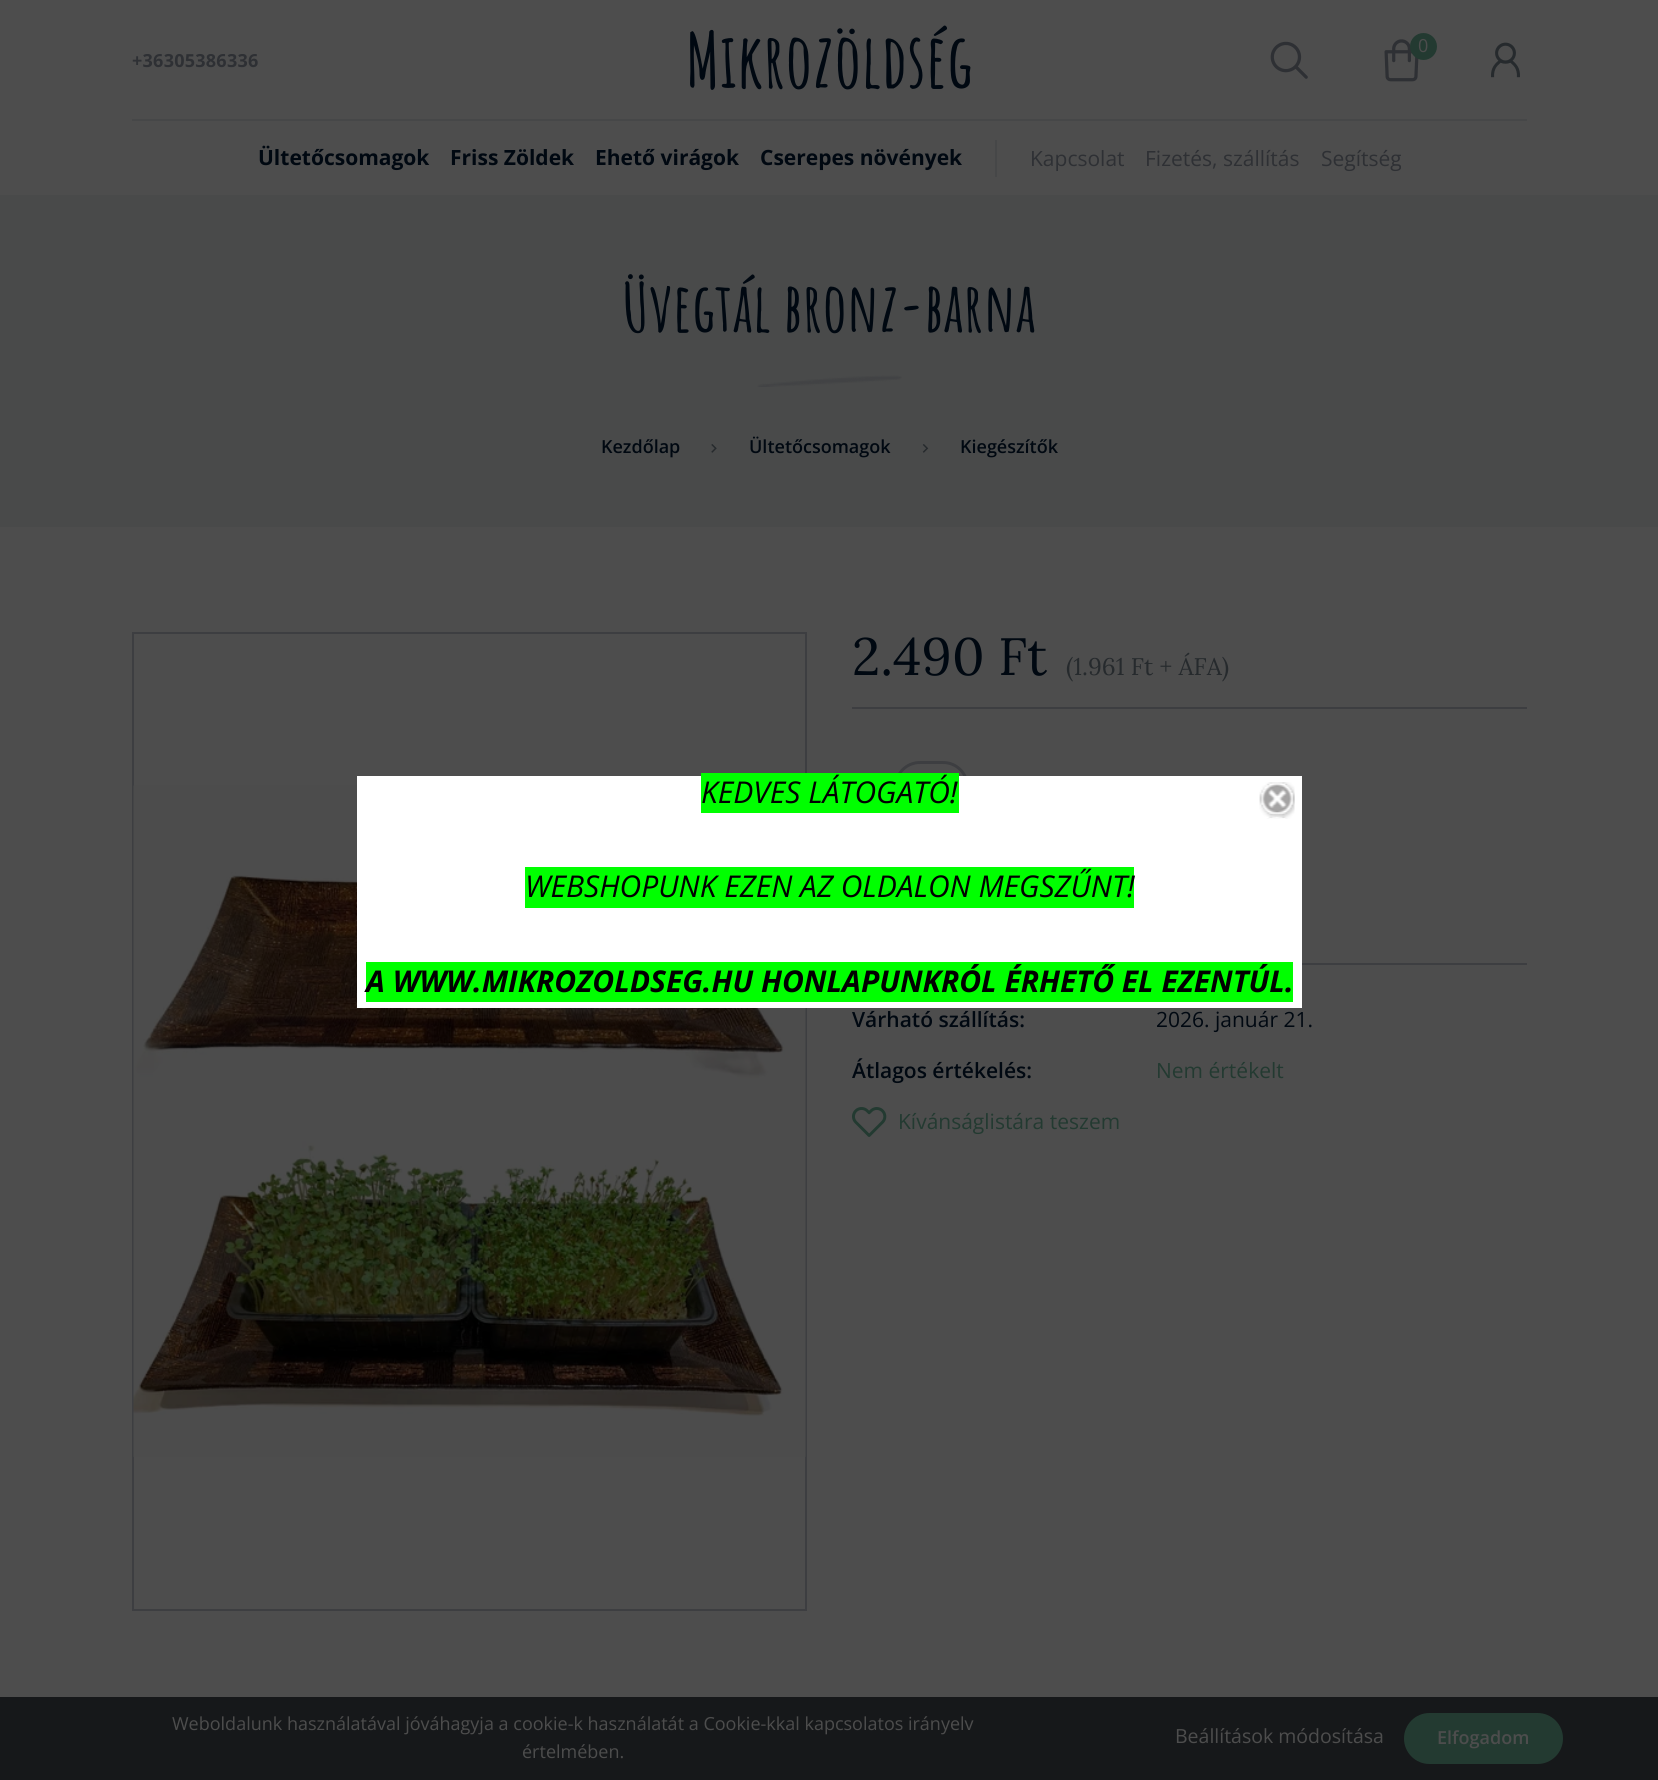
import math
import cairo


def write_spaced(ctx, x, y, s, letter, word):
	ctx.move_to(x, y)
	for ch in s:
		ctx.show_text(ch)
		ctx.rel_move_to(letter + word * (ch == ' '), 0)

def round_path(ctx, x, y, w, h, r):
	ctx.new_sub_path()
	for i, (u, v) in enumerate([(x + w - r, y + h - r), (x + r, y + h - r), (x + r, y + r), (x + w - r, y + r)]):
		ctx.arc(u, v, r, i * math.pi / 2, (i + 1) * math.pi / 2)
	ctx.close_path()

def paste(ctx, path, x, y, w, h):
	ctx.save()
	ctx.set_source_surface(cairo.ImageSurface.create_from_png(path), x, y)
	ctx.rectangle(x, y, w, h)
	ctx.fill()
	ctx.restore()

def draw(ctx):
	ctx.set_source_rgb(0.302, 0.302, 0.302)
	ctx.paint()
	ctx.set_source_rgb(0.275, 0.278, 0.282)
	ctx.rectangle(132, 119, 1395, 2)
	ctx.fill()
	ctx.select_font_face('Amatic SC', cairo.FONT_SLANT_NORMAL, cairo.FONT_WEIGHT_BOLD)
	ctx.set_font_size(75)
	ctx.set_source_rgb(0, 0.035, 0.067)
	ctx.move_to(686, 88)
	ctx.show_text('Mikrozöldség')
	paste(ctx, 'media/1.png', 1270, 41, 38, 38)
	paste(ctx, 'media/2.png', 1384, 39, 35, 43)
	ctx.set_source_rgb(0.137, 0.227, 0.192)
	ctx.arc(1423.5, 46.5, 13.5, 0, 2 * math.pi)
	ctx.fill()
	ctx.select_font_face('Open Sans')
	ctx.set_font_size(18)
	ctx.set_source_rgb(0.302, 0.302, 0.302)
	ctx.move_to(1418, 52)
	ctx.show_text('0')
	paste(ctx, 'media/3.png', 1491, 42, 29, 36)
	ctx.select_font_face('Open Sans', cairo.FONT_SLANT_NORMAL, cairo.FONT_WEIGHT_BOLD)
	ctx.set_source_rgb(0.18, 0.188, 0.204)
	write_spaced(ctx, 132, 67, '+36305386336', 0.25, 0)
	ctx.set_font_size(21)
	ctx.set_source_rgb(0, 0.035, 0.067)
	for x, y, s in [
		(258, 165, 'Ültetőcsomagok'),
		(450, 165, 'Friss Zöldek'),
		(595, 165, 'Ehető virágok'),
		(760, 165, 'Cserepes növények'),
	]:
		ctx.move_to(x, y)
		ctx.show_text(s)
	ctx.set_source_rgb(0.275, 0.278, 0.282)
	ctx.rectangle(995, 140, 2, 37)
	ctx.fill()
	ctx.select_font_face('Open Sans')
	ctx.set_source_rgb(0.18, 0.188, 0.204)
	for x, y, s in [
		(1030, 166, 'Kapcsolat'),
		(1145, 166, 'Fizetés, szállítás'),
		(1321, 166, 'Segítség'),
	]:
		ctx.move_to(x, y)
		ctx.show_text(s)
	ctx.set_source_rgb(0.286, 0.29, 0.29)
	ctx.rectangle(0, 195, 1658, 332)
	ctx.fill()
	ctx.select_font_face('Amatic SC', cairo.FONT_SLANT_NORMAL, cairo.FONT_WEIGHT_BOLD)
	ctx.set_font_size(67.5)
	ctx.set_source_rgb(0, 0.035, 0.067)
	ctx.move_to(622, 332)
	ctx.show_text('Üvegtál bronz-barna')
	paste(ctx, 'media/4.png', 757, 375, 145, 12)
	ctx.select_font_face('Open Sans SemiBold')
	ctx.set_font_size(18)
	ctx.move_to(601, 453)
	ctx.show_text('Kezdőlap')
	paste(ctx, 'media/5.png', 711, 444, 6, 9)
	ctx.move_to(749, 453)
	ctx.show_text('Ültetőcsomagok')
	paste(ctx, 'media/6.png', 922, 444, 7, 9)
	ctx.move_to(960, 453)
	ctx.show_text('Kiegészítők')
	ctx.rectangle(133, 633, 673, 977)
	ctx.set_source_rgb(0.239, 0.243, 0.255)
	ctx.stroke()
	paste(ctx, 'media/7.png', 133, 785, 673, 672)
	ctx.select_font_face('Lora')
	ctx.set_font_size(52.5)
	ctx.set_source_rgb(0, 0.035, 0.067)
	ctx.move_to(852, 675)
	ctx.show_text('2.490 Ft')
	ctx.set_font_size(24)
	ctx.set_source_rgb(0.149, 0.165, 0.176)
	ctx.move_to(1066, 675)
	ctx.show_text('(1.961 Ft + ÁFA)')
	ctx.set_source_rgb(0.239, 0.243, 0.255)
	ctx.rectangle(852, 707, 675, 2)
	ctx.fill()
	ctx.rectangle(1302, 963, 225, 2)
	ctx.fill()
	round_path(ctx, 895.5, 762.5, 72, 49, 24.5)
	ctx.set_line_width(3)
	ctx.stroke()
	ctx.select_font_face('Open Sans SemiBold')
	ctx.set_font_size(21)
	ctx.set_source_rgb(0, 0.035, 0.067)
	ctx.move_to(852, 1027)
	ctx.show_text('Várható szállítás:')
	ctx.select_font_face('Open Sans')
	ctx.move_to(1156, 1027)
	ctx.show_text('2026. január 21.')
	ctx.select_font_face('Open Sans SemiBold')
	ctx.move_to(852, 1078)
	ctx.show_text('Átlagos értékelés:')
	ctx.select_font_face('Open Sans')
	ctx.set_source_rgb(0.137, 0.227, 0.192)
	ctx.move_to(1156, 1078)
	ctx.show_text('Nem értékelt')
	paste(ctx, 'media/8.png', 852, 1107, 35, 30)
	ctx.move_to(898, 1129)
	ctx.show_text('Kívánságlistára teszem')
	ctx.set_source_rgb(1, 1, 1)
	ctx.rectangle(357, 776, 945, 232)
	ctx.fill()
	ctx.set_source_rgb(0, 1, 0)
	ctx.rectangle(701, 773, 258, 40)
	ctx.fill()
	ctx.select_font_face('Open Sans', cairo.FONT_SLANT_ITALIC)
	ctx.set_font_size(30)
	ctx.set_source_rgb(0, 0, 0)
	ctx.move_to(701, 803)
	ctx.show_text('KEDVES LÁTOGATÓ!')
	paste(ctx, 'media/9.png', 1259, 782, 36, 37)
	ctx.set_source_rgb(0, 1, 0)
	ctx.rectangle(525, 867, 609, 41)
	ctx.fill()
	ctx.set_source_rgb(0, 0, 0)
	ctx.move_to(525, 897)
	ctx.show_text('WEBSHOPUNK EZEN AZ OLDALON MEGSZŰNT!')
	ctx.set_source_rgb(0, 1, 0)
	ctx.rectangle(366, 962, 927, 40)
	ctx.fill()
	ctx.select_font_face('Open Sans', cairo.FONT_SLANT_ITALIC, cairo.FONT_WEIGHT_BOLD)
	ctx.set_source_rgb(0, 0, 0)
	ctx.move_to(366, 992)
	ctx.show_text('A WWW.MIKROZOLDSEG.HU HONLAPUNKRÓL ÉRHETŐ EL EZENTÚL.')
	ctx.set_source_rgb(0.086, 0.094, 0.102)
	ctx.rectangle(0, 1697, 1658, 83)
	ctx.fill()
	ctx.select_font_face('Open Sans')
	ctx.set_font_size(18)
	ctx.set_source_rgb(0.302, 0.302, 0.302)
	ctx.move_to(172, 1730)
	ctx.show_text('Weboldalunk használatával jóváhagyja a cookie-k használatát a Cookie-kkal kapcsolatos irányelv')
	ctx.move_to(522, 1758)
	ctx.show_text('értelmében.')
	ctx.set_font_size(19.5)
	ctx.move_to(1175, 1743)
	ctx.show_text('Beállítások módosítása')
	ctx.set_source_rgb(0.137, 0.227, 0.192)
	round_path(ctx, 1405.5, 1714.5, 156, 48, 24)
	ctx.fill_preserve()
	ctx.stroke()
	ctx.select_font_face('Open Sans SemiBold')
	ctx.set_font_size(18)
	ctx.set_source_rgb(0.302, 0.302, 0.302)
	ctx.move_to(1437, 1744)
	ctx.show_text('Elfogadom')


surface = cairo.ImageSurface(cairo.FORMAT_RGB24, 1658, 1780)
ctx = cairo.Context(surface)
options = cairo.FontOptions()
options.set_hint_metrics(cairo.HINT_METRICS_OFF)
options.set_hint_style(cairo.HINT_STYLE_NONE)
ctx.set_font_options(options)
ctx.set_miter_limit(4)
draw(ctx)
surface.write_to_png('image.png')
